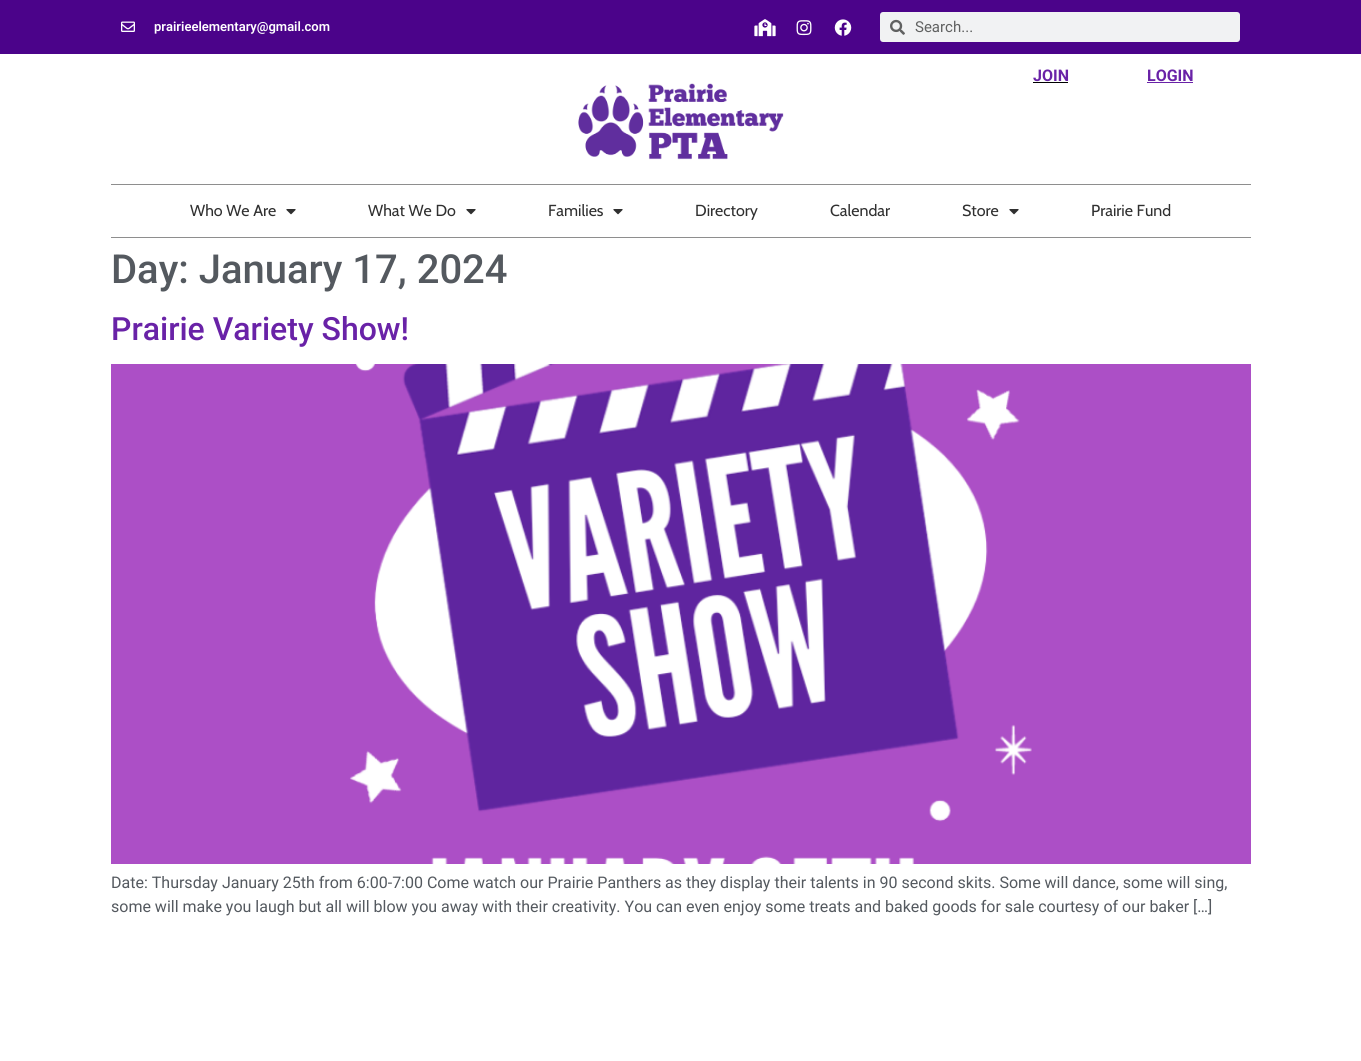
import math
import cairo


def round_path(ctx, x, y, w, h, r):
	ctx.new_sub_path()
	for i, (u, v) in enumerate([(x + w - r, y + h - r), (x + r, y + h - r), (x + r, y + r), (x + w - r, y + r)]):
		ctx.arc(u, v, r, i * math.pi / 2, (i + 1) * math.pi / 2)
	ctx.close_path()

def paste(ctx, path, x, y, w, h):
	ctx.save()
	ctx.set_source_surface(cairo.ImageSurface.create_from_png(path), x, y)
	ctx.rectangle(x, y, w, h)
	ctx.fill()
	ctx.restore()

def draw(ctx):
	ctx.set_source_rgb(1, 1, 1)
	ctx.paint()
	ctx.set_source_rgb(0.294, 0.012, 0.541)
	ctx.rectangle(0, 0, 1361, 54)
	ctx.fill()
	paste(ctx, 'media/1.png', 121, 21, 14, 11)
	ctx.select_font_face('Roboto SemiBold')
	ctx.set_font_size(13)
	ctx.set_source_rgb(1, 1, 1)
	ctx.move_to(154, 31)
	ctx.show_text('prairieelementary@gmail.com')
	paste(ctx, 'media/2.png', 754, 19, 22, 18)
	paste(ctx, 'media/3.png', 796, 20, 16, 16)
	paste(ctx, 'media/4.png', 834, 19, 18, 17)
	ctx.set_source_rgb(0.945, 0.949, 0.953)
	round_path(ctx, 880, 12, 360, 30, 3)
	ctx.fill()
	paste(ctx, 'media/5.png', 890, 19, 15, 16)
	ctx.select_font_face('Roboto')
	ctx.set_font_size(15)
	ctx.set_source_rgb(0.376, 0.38, 0.38)
	ctx.move_to(915, 32)
	ctx.show_text('Search...')
	ctx.select_font_face('Roboto', cairo.FONT_SLANT_NORMAL, cairo.FONT_WEIGHT_BOLD)
	ctx.set_font_size(16)
	ctx.set_source_rgb(0.412, 0.133, 0.655)
	ctx.move_to(1033, 81)
	ctx.show_text('JOIN')
	ctx.set_source_rgb(0, 0, 0)
	ctx.rectangle(1033, 82, 35, 1)
	ctx.fill()
	ctx.set_source_rgb(0.412, 0.133, 0.655)
	ctx.move_to(1147, 81)
	ctx.show_text('LOGIN')
	ctx.rectangle(1147, 82, 46, 1)
	ctx.fill()
	paste(ctx, 'media/6.png', 578, 83, 206, 77)
	ctx.set_source_rgb(0.557, 0.557, 0.557)
	ctx.rectangle(111, 184, 1140, 1)
	ctx.fill()
	ctx.rectangle(111, 237, 1140, 1)
	ctx.fill()
	ctx.select_font_face('Cabin')
	ctx.set_source_rgb(0.188, 0.188, 0.188)
	ctx.move_to(190, 216)
	ctx.show_text('Who We Are')
	paste(ctx, 'media/7.png', 286, 209, 10, 6)
	ctx.move_to(368, 216)
	ctx.show_text('What We Do')
	paste(ctx, 'media/7.png', 466, 209, 10, 6)
	ctx.move_to(548, 216)
	ctx.show_text('Families')
	paste(ctx, 'media/7.png', 613, 209, 10, 6)
	for x, y, s in [
		(695, 216, 'Directory'),
		(830, 216, 'Calendar'),
		(962, 216, 'Store'),
	]:
		ctx.move_to(x, y)
		ctx.show_text(s)
	paste(ctx, 'media/7.png', 1009, 209, 10, 6)
	ctx.move_to(1091, 216)
	ctx.show_text('Prairie Fund')
	ctx.select_font_face('Roboto Medium')
	ctx.set_font_size(40)
	ctx.set_source_rgb(0.329, 0.349, 0.373)
	ctx.move_to(111, 283)
	ctx.show_text('Day: January 17, 2024')
	ctx.set_font_size(32)
	ctx.set_source_rgb(0.412, 0.133, 0.655)
	ctx.move_to(111, 340)
	ctx.show_text('Prairie Variety Show!')
	paste(ctx, 'media/8.png', 111, 364, 1140, 500)
	ctx.select_font_face('Roboto')
	ctx.set_font_size(16)
	ctx.set_source_rgb(0.329, 0.349, 0.373)
	ctx.move_to(111, 888)
	ctx.show_text('Date: Thursday January 25th from 6:00-7:00 Come watch our Prairie Panthers as they display their talents in 90 second skits. Some will dance, some will sing,')
	ctx.move_to(111, 912)
	ctx.show_text('some will make you laugh but all will blow you away with their creativity. You can even enjoy some treats and baked goods for sale courtesy of our baker […]')


surface = cairo.ImageSurface(cairo.FORMAT_RGB24, 1361, 1061)
ctx = cairo.Context(surface)
options = cairo.FontOptions()
options.set_hint_metrics(cairo.HINT_METRICS_OFF)
options.set_hint_style(cairo.HINT_STYLE_NONE)
ctx.set_font_options(options)
ctx.set_miter_limit(4)
draw(ctx)
surface.write_to_png('image.png')
